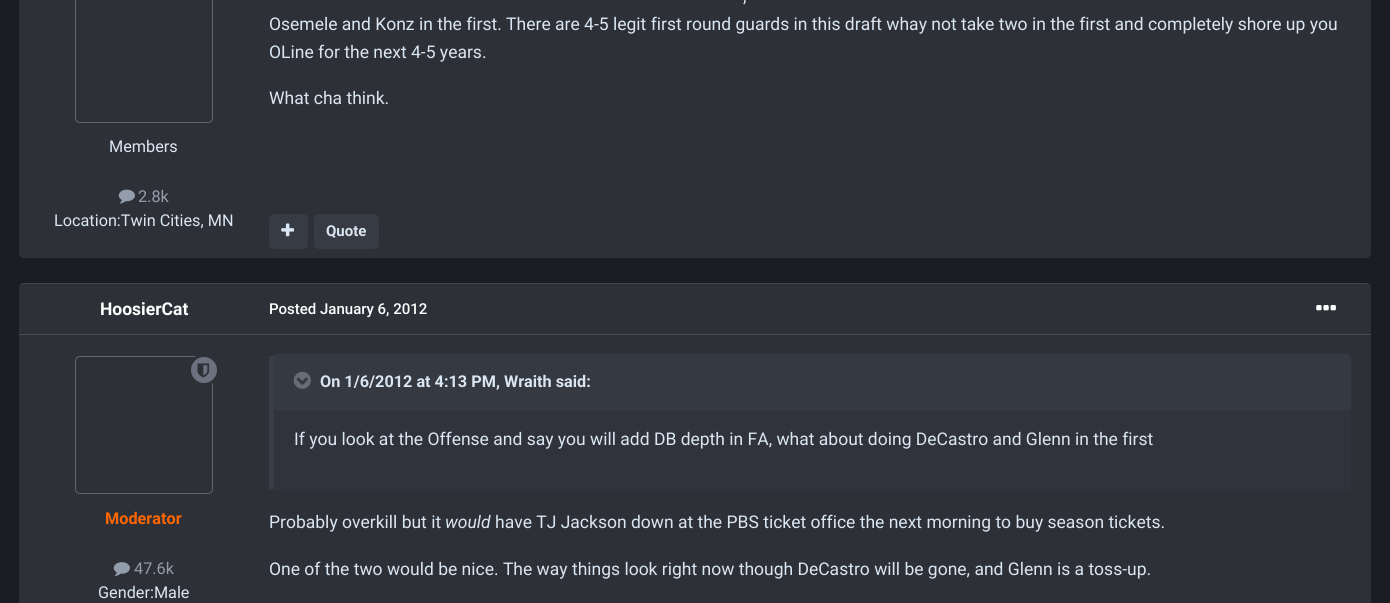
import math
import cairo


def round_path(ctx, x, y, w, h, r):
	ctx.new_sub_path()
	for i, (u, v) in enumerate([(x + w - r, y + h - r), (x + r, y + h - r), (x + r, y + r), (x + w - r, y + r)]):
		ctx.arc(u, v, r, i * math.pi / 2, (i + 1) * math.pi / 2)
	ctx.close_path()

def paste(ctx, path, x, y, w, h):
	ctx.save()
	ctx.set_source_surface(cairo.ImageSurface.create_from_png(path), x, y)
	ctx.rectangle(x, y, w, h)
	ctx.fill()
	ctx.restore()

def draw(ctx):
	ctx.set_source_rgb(0.106, 0.114, 0.133)
	ctx.paint()
	ctx.set_source_rgb(0.176, 0.188, 0.216)
	round_path(ctx, 19, -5, 1352, 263, 5)
	ctx.fill()
	round_path(ctx, 75.5, -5.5, 137, 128, 4.5)
	ctx.set_source_rgba(0.855, 0.902, 0.953, 0.3)
	ctx.set_line_width(1)
	ctx.stroke()
	ctx.select_font_face('Roboto')
	ctx.set_font_size(16.25)
	ctx.set_source_rgb(0.855, 0.902, 0.953)
	ctx.move_to(109, 152)
	ctx.show_text('Members')
	paste(ctx, 'media/1.png', 118, 189, 17, 15)
	ctx.set_source_rgb(0.576, 0.616, 0.675)
	ctx.move_to(138, 202)
	ctx.show_text('2.8k')
	ctx.set_source_rgb(0.855, 0.902, 0.953)
	ctx.move_to(54, 226)
	ctx.show_text('Location:Twin Cities, MN')
	ctx.set_font_size(17.5)
	for x, y, s in [
		(743, 2, ','),
		(269, 30, 'Osemele and Konz in the first. There are 4-5 legit first round guards in this draft whay not take two in the first and completely shore up you'),
		(269, 58, 'OLine for the next 4-5 years.'),
		(269, 104, 'What cha think.'),
	]:
		ctx.move_to(x, y)
		ctx.show_text(s)
	ctx.set_source_rgb(0.216, 0.231, 0.263)
	round_path(ctx, 269, 214, 39, 35, 5)
	ctx.fill()
	paste(ctx, 'media/2.png', 281, 223, 13, 14)
	round_path(ctx, 314, 214, 65, 35, 5)
	ctx.fill()
	ctx.select_font_face('Roboto', cairo.FONT_SLANT_NORMAL, cairo.FONT_WEIGHT_BOLD)
	ctx.set_font_size(15)
	ctx.set_source_rgb(0.855, 0.902, 0.953)
	ctx.move_to(326, 236)
	ctx.show_text('Quote')
	ctx.set_source_rgb(0.176, 0.188, 0.216)
	round_path(ctx, 19, 283, 1352, 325, 5)
	ctx.fill()
	ctx.set_source_rgba(1, 1, 1, 0.1)
	ctx.new_path()
	ctx.move_to(24, 284)
	ctx.line_to(1366, 284)
	ctx.curve_to(1369, 284, 1371, 286, 1371, 289)
	ctx.curve_to(1371, 286, 1369, 283, 1366, 283)
	ctx.line_to(24, 283)
	ctx.curve_to(21, 283, 19, 286, 19, 289)
	ctx.curve_to(19, 286, 21, 284, 24, 284)
	ctx.close_path()
	ctx.fill()
	ctx.set_font_size(17.5)
	ctx.set_source_rgb(1, 1, 1)
	ctx.move_to(100, 315)
	ctx.show_text('HoosierCat')
	round_path(ctx, 75.5, 356.5, 137, 137, 4.5)
	ctx.set_source_rgba(0.855, 0.902, 0.953, 0.3)
	ctx.stroke()
	ctx.set_source_rgb(0.424, 0.443, 0.502)
	ctx.arc(204, 370, 14.5, 0, 2 * math.pi)
	ctx.fill_preserve()
	ctx.set_source_rgb(0.176, 0.188, 0.216)
	ctx.set_line_width(3)
	ctx.stroke()
	paste(ctx, 'media/3.png', 197, 363, 13, 15)
	ctx.set_font_size(16.25)
	ctx.set_source_rgb(1, 0.4, 0)
	ctx.move_to(105, 524)
	ctx.show_text('Moderator')
	paste(ctx, 'media/4.png', 113, 562, 17, 14)
	ctx.select_font_face('Roboto')
	ctx.set_source_rgb(0.576, 0.616, 0.675)
	ctx.move_to(134, 574)
	ctx.show_text('47.6k')
	ctx.set_source_rgb(0.855, 0.902, 0.953)
	ctx.move_to(98, 598)
	ctx.show_text('Gender:Male')
	ctx.select_font_face('Roboto Medium')
	ctx.set_font_size(15)
	ctx.set_source_rgb(1, 1, 1)
	ctx.move_to(269, 314)
	ctx.show_text('Posted January 6, 2012')
	paste(ctx, 'media/5.png', 1316, 305, 20, 6)
	ctx.set_source_rgb(0.188, 0.2, 0.231)
	ctx.new_path()
	ctx.move_to(274, 354)
	ctx.line_to(1346, 354)
	ctx.curve_to(1349, 354, 1351, 356, 1351, 359)
	ctx.line_to(1351, 486)
	ctx.curve_to(1351, 489, 1349, 491, 1346, 491)
	ctx.line_to(274, 491)
	ctx.close_path()
	ctx.fill()
	ctx.set_source_rgb(0.224, 0.239, 0.275)
	ctx.rectangle(269, 356, 5, 133)
	ctx.fill()
	ctx.set_source_rgb(0.208, 0.224, 0.255)
	ctx.new_path()
	ctx.move_to(274, 354)
	ctx.line_to(1346, 354)
	ctx.curve_to(1349, 354, 1351, 356, 1351, 359)
	ctx.line_to(1351, 410)
	ctx.line_to(274, 410)
	ctx.close_path()
	ctx.fill()
	paste(ctx, 'media/6.png', 293, 371, 18, 18)
	ctx.select_font_face('Roboto', cairo.FONT_SLANT_NORMAL, cairo.FONT_WEIGHT_BOLD)
	ctx.set_font_size(16.25)
	ctx.set_source_rgb(0.855, 0.902, 0.953)
	ctx.move_to(320, 387)
	ctx.show_text('On 1/6/2012 at 4:13 PM, Wraith said:')
	ctx.select_font_face('Roboto')
	ctx.set_font_size(17.5)
	ctx.move_to(294, 445)
	ctx.show_text('If you look at the Offense and say you will add DB depth in FA, what about doing DeCastro and Glenn in the first')
	ctx.move_to(269, 528)
	ctx.show_text('Probably overkill but it')
	ctx.select_font_face('Roboto', cairo.FONT_SLANT_ITALIC)
	ctx.move_to(445, 528)
	ctx.show_text('would')
	ctx.select_font_face('Roboto')
	ctx.move_to(495, 528)
	ctx.show_text('have TJ Jackson down at the PBS ticket office the next morning to buy season tickets.')
	ctx.move_to(269, 575)
	ctx.show_text('One of the two would be nice. The way things look right now though DeCastro will be gone, and Glenn is a toss-up.')
	ctx.set_source_rgb(0.278, 0.294, 0.325)
	ctx.rectangle(19, 334, 1352, 1)
	ctx.fill()


surface = cairo.ImageSurface(cairo.FORMAT_RGB24, 1390, 603)
ctx = cairo.Context(surface)
options = cairo.FontOptions()
options.set_hint_metrics(cairo.HINT_METRICS_OFF)
options.set_hint_style(cairo.HINT_STYLE_NONE)
ctx.set_font_options(options)
ctx.set_miter_limit(4)
draw(ctx)
surface.write_to_png('image.png')
